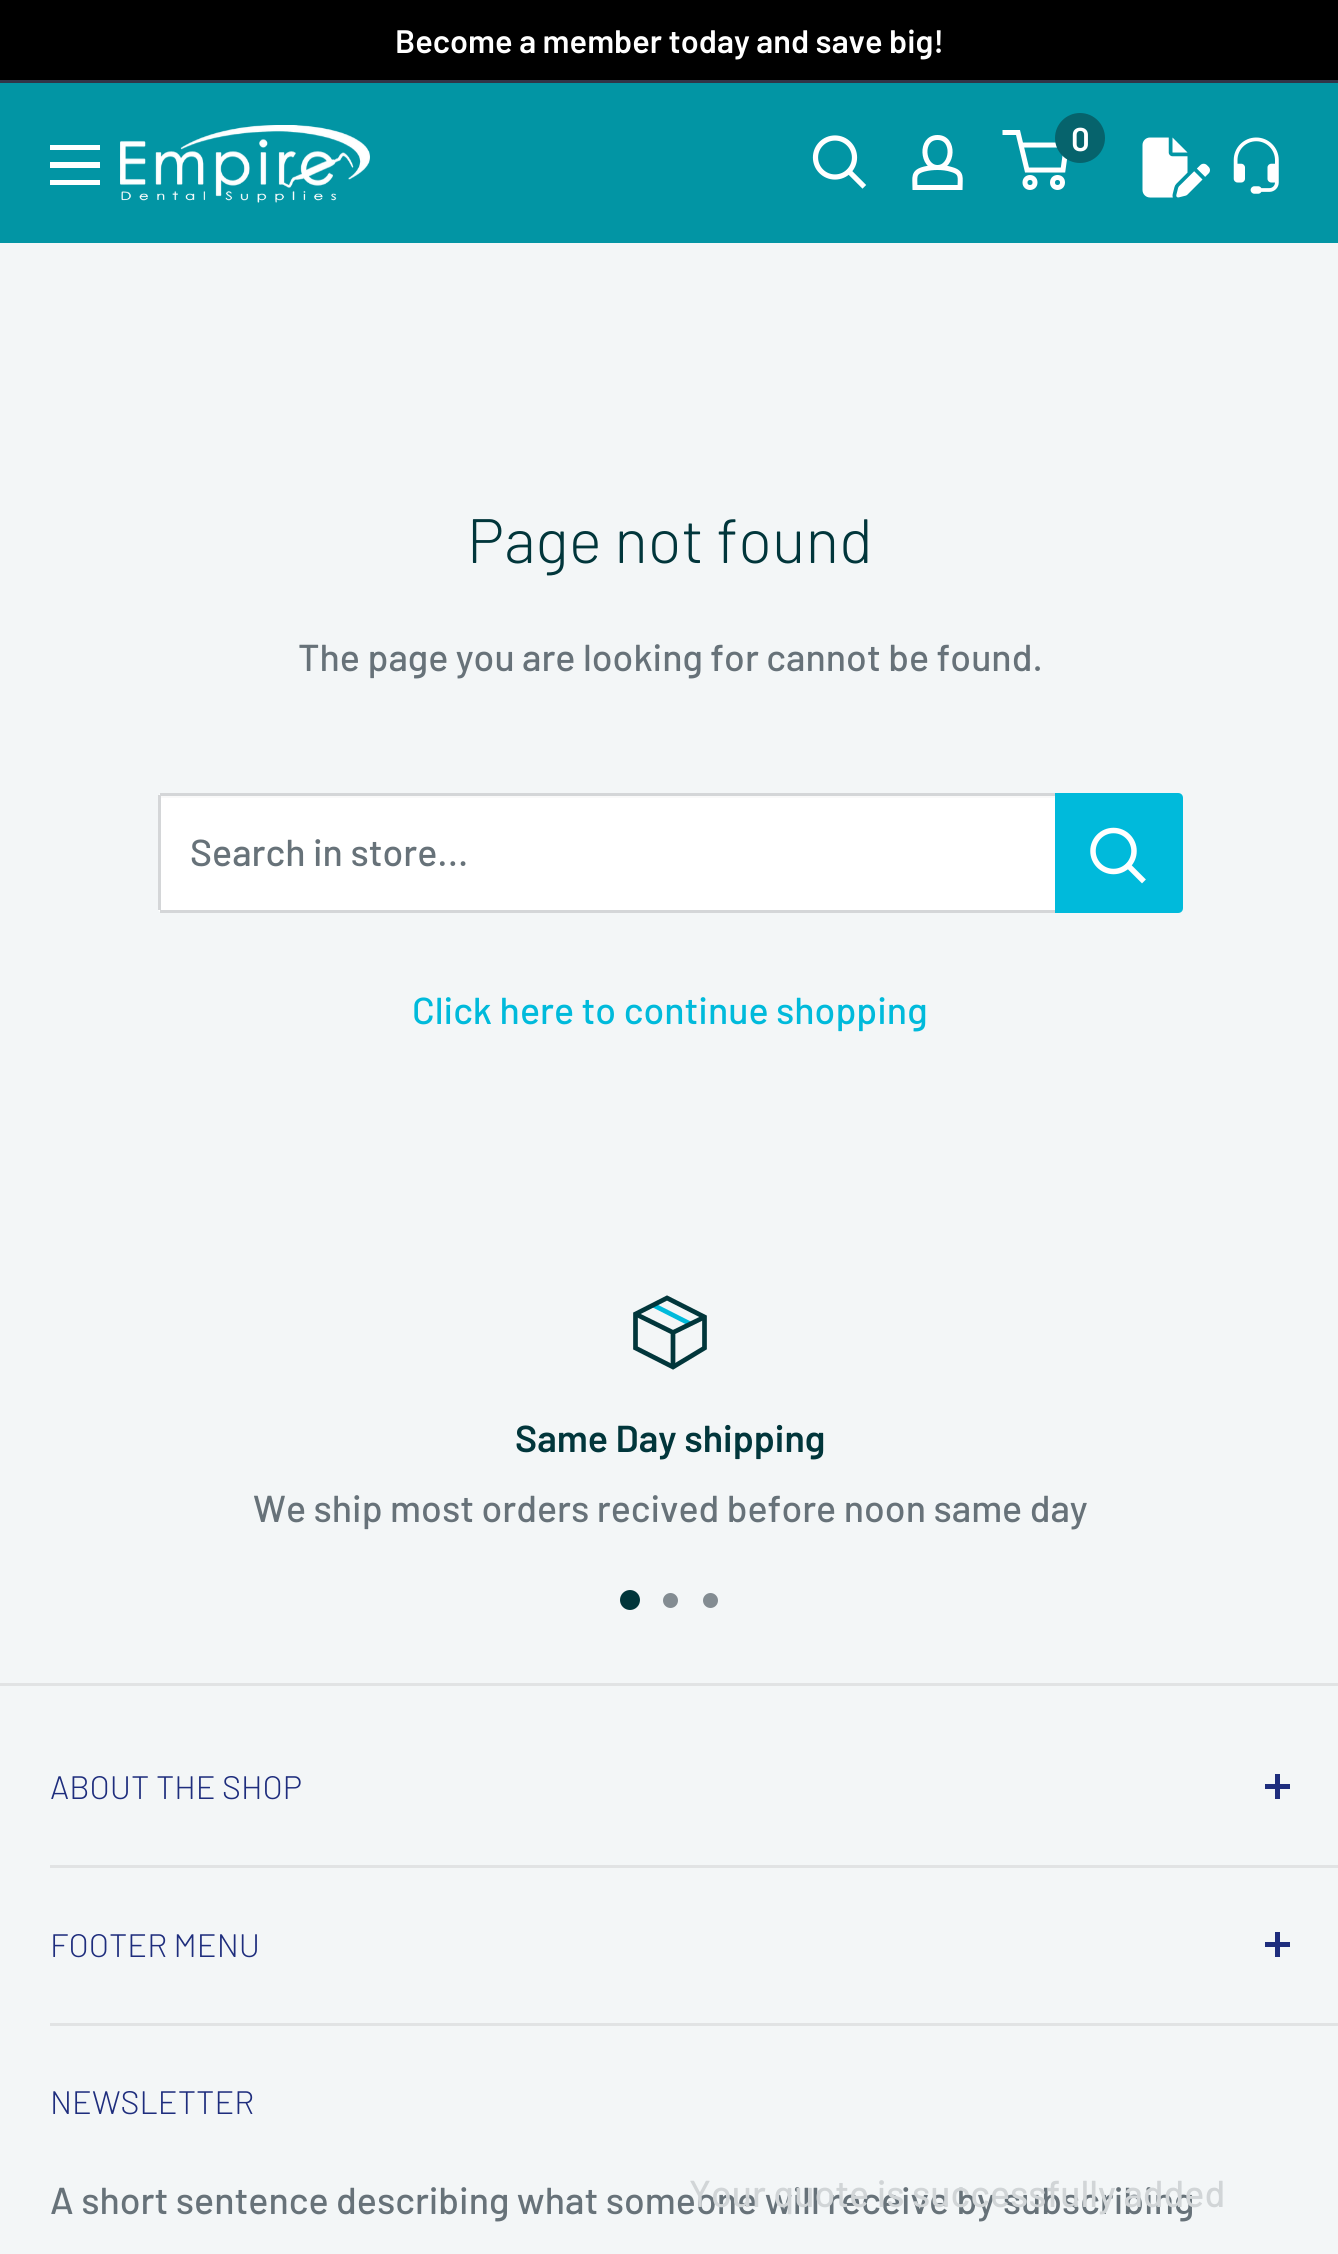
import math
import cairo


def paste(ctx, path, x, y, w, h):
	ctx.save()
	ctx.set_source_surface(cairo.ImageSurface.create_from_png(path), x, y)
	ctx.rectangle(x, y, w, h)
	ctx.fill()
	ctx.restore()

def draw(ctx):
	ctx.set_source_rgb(0.953, 0.961, 0.965)
	ctx.paint()
	ctx.set_source_rgb(0, 0, 0)
	ctx.rectangle(0, 0, 1338, 80)
	ctx.fill()
	ctx.set_source_rgb(0.192, 0.208, 0.282)
	ctx.rectangle(0, 80, 1338, 3)
	ctx.fill()
	ctx.select_font_face('Barlow SemiBold')
	ctx.set_font_size(32.5)
	ctx.set_source_rgb(1, 1, 1)
	ctx.move_to(395, 53)
	ctx.show_text('Become a member today and save big!')
	ctx.set_source_rgb(0.008, 0.584, 0.643)
	ctx.rectangle(0, 83, 1338, 160)
	ctx.fill()
	ctx.set_source_rgb(1, 1, 1)
	ctx.set_fill_rule(cairo.FILL_RULE_EVEN_ODD)
	ctx.new_path()
	ctx.move_to(50, 180)
	ctx.line_to(100, 180)
	ctx.line_to(100, 185)
	ctx.line_to(50, 185)
	ctx.close_path()
	ctx.move_to(50, 145)
	ctx.line_to(100, 145)
	ctx.line_to(100, 150)
	ctx.line_to(50, 150)
	ctx.close_path()
	ctx.move_to(50, 162)
	ctx.line_to(100, 162)
	ctx.line_to(100, 168)
	ctx.line_to(50, 168)
	ctx.close_path()
	ctx.fill()
	paste(ctx, 'media/1.png', 120, 125, 250, 78)
	ctx.new_path()
	ctx.move_to(862.5, 185)
	ctx.line_to(849, 171.5)
	ctx.set_line_width(5.2)
	ctx.set_line_cap(cairo.LINE_CAP_SQUARE)
	ctx.stroke()
	ctx.arc(835, 157.5, 19.5, 0, 2 * math.pi)
	ctx.set_line_cap(cairo.LINE_CAP_BUTT)
	ctx.stroke()
	ctx.new_path()
	ctx.move_to(937.5, 167.5)
	ctx.curve_to(942, 167.5, 947, 168, 951.5, 169.5)
	ctx.curve_to(962.5, 172.5, 960, 178, 960, 187.5)
	ctx.line_to(915, 187.5)
	ctx.curve_to(915, 177.5, 912.5, 172, 924.5, 169)
	ctx.curve_to(928.5, 168, 933, 167.5, 937.5, 167.5)
	ctx.close_path()
	ctx.move_to(937.5, 167.5)
	ctx.curve_to(922, 167.5, 919.5, 137.5, 937.5, 137.5)
	ctx.curve_to(955.5, 137.5, 953, 167.5, 937.5, 167.5)
	ctx.close_path()
	ctx.set_line_width(5)
	ctx.stroke()
	ctx.arc(1030, 182.5, 5, 0, 2 * math.pi)
	ctx.stroke()
	ctx.arc(1057.5, 182.5, 5, 0, 2 * math.pi)
	ctx.stroke()
	ctx.new_path()
	ctx.move_to(1021, 145)
	ctx.line_to(1066.5, 145)
	ctx.line_to(1063, 170)
	ctx.line_to(1027, 170)
	ctx.line_to(1018, 132.5)
	ctx.line_to(1002.5, 132.5)
	ctx.stroke()
	ctx.set_source_rgb(0.027, 0.388, 0.424)
	ctx.arc(1080, 138, 25, 0, 2 * math.pi)
	ctx.fill()
	ctx.set_font_size(33)
	ctx.set_source_rgb(1, 1, 1)
	ctx.move_to(1071, 151)
	ctx.show_text('0')
	paste(ctx, 'media/2.png', 1142, 137, 68, 61)
	paste(ctx, 'media/3.png', 1233, 137, 46, 57)
	ctx.select_font_face('Barlow Light')
	ctx.set_font_size(62.5)
	ctx.set_source_rgb(0.004, 0.212, 0.231)
	ctx.move_to(467, 563)
	ctx.show_text('Page not found')
	ctx.select_font_face('Barlow Medium')
	ctx.set_font_size(37.5)
	ctx.set_source_rgb(0.404, 0.447, 0.475)
	ctx.move_to(298, 671)
	ctx.show_text('The page you are looking for cannot be found.')
	ctx.set_source_rgb(1, 1, 1)
	ctx.new_path()
	ctx.move_to(163, 793)
	ctx.line_to(1055, 793)
	ctx.line_to(1055, 913)
	ctx.line_to(163, 913)
	ctx.curve_to(160, 913, 158, 911, 158, 908)
	ctx.line_to(158, 798)
	ctx.curve_to(158, 795, 160, 793, 163, 793)
	ctx.close_path()
	ctx.fill()
	ctx.set_source_rgb(0.973, 0.973, 0.973)
	ctx.set_fill_rule(cairo.FILL_RULE_WINDING)
	ctx.new_path()
	ctx.move_to(162, 798)
	ctx.line_to(1055, 798)
	ctx.line_to(1055, 795)
	ctx.line_to(162, 795)
	ctx.curve_to(160, 795, 160, 798, 160, 800)
	ctx.curve_to(160, 799, 161, 798, 162, 798)
	ctx.close_path()
	ctx.fill()
	ctx.set_source_rgb(0.831, 0.839, 0.847)
	ctx.rectangle(160, 793, 895, 3)
	ctx.rectangle(160, 910, 895, 3)
	ctx.rectangle(158, 795, 3, 115)
	ctx.fill()
	ctx.set_source_rgb(0.404, 0.447, 0.475)
	ctx.move_to(190, 866)
	ctx.show_text('Search in store...')
	ctx.set_source_rgb(0, 0.729, 0.859)
	ctx.new_path()
	ctx.move_to(1055, 793)
	ctx.line_to(1178, 793)
	ctx.curve_to(1181, 793, 1183, 795, 1183, 798)
	ctx.line_to(1183, 908)
	ctx.curve_to(1183, 911, 1181, 913, 1178, 913)
	ctx.line_to(1055, 913)
	ctx.close_path()
	ctx.fill()
	ctx.new_path()
	ctx.move_to(1142, 879.5)
	ctx.line_to(1128.5, 866)
	ctx.set_source_rgb(1, 1, 1)
	ctx.set_line_width(5.5)
	ctx.set_line_cap(cairo.LINE_CAP_SQUARE)
	ctx.stroke()
	ctx.arc(1113.5, 851, 20.5, 0, 2 * math.pi)
	ctx.set_line_cap(cairo.LINE_CAP_BUTT)
	ctx.stroke()
	ctx.set_source_rgb(0, 0.729, 0.859)
	ctx.move_to(412, 1024)
	ctx.show_text('Click here to continue shopping')
	ctx.new_path()
	ctx.move_to(653, 1305)
	ctx.line_to(690.5, 1324)
	ctx.set_line_width(4.7)
	ctx.stroke()
	ctx.new_path()
	ctx.move_to(704.5, 1317)
	ctx.line_to(673, 1332.5)
	ctx.line_to(635.5, 1314)
	ctx.move_to(673, 1332.5)
	ctx.line_to(673, 1367)
	ctx.set_source_rgb(0.004, 0.212, 0.231)
	ctx.stroke()
	ctx.new_path()
	ctx.move_to(704.5, 1317)
	ctx.line_to(704.5, 1348)
	ctx.line_to(673, 1367)
	ctx.line_to(635.5, 1348)
	ctx.line_to(635.5, 1314)
	ctx.line_to(667, 1298)
	ctx.close_path()
	ctx.set_line_cap(cairo.LINE_CAP_SQUARE)
	ctx.stroke()
	ctx.select_font_face('Barlow SemiBold')
	ctx.move_to(515, 1452)
	ctx.show_text('Same Day shipping')
	ctx.select_font_face('Barlow Medium')
	ctx.set_source_rgb(0.404, 0.447, 0.475)
	ctx.move_to(253, 1522)
	ctx.show_text('We ship most orders recived before noon same day')
	ctx.set_source_rgb(0.004, 0.212, 0.231)
	ctx.new_path()
	ctx.arc(630, 1600, 10, 0, 2 * math.pi)
	ctx.fill()
	ctx.set_source_rgb(0.514, 0.549, 0.573)
	ctx.arc(670.5, 1600.5, 7.5, 0, 2 * math.pi)
	ctx.fill()
	ctx.arc(710.5, 1600.5, 7.5, 0, 2 * math.pi)
	ctx.fill()
	ctx.set_source_rgb(0.882, 0.89, 0.894)
	ctx.rectangle(0, 1683, 1338, 3)
	ctx.fill()
	ctx.rectangle(50, 1865, 1288, 3)
	ctx.fill()
	ctx.select_font_face('Barlow Light')
	ctx.set_font_size(32.5)
	ctx.set_source_rgb(0.118, 0.176, 0.49)
	ctx.move_to(50, 1799)
	ctx.show_text('ABOUT THE SHOP')
	ctx.rectangle(1275, 1774, 5, 25)
	ctx.rectangle(1265, 1784, 25, 5)
	ctx.fill()
	ctx.set_source_rgb(0.882, 0.89, 0.894)
	ctx.rectangle(50, 2023, 1288, 3)
	ctx.fill()
	ctx.set_source_rgb(0.118, 0.176, 0.49)
	ctx.move_to(50, 1957)
	ctx.show_text('FOOTER MENU')
	ctx.rectangle(1275, 1932, 5, 25)
	ctx.fill()
	ctx.rectangle(1265, 1942, 25, 5)
	ctx.fill()
	ctx.move_to(50, 2114)
	ctx.show_text('NEWSLETTER')
	ctx.select_font_face('Barlow Medium')
	ctx.set_font_size(37.5)
	ctx.set_source_rgb(0.404, 0.447, 0.475)
	ctx.move_to(50, 2214)
	ctx.show_text('A short sentence describing what someone will receive by subscribing')
	ctx.set_source_rgb(0.82, 0.835, 0.843)
	ctx.move_to(689, 2207)
	ctx.show_text('Your quote is successfully added')


surface = cairo.ImageSurface(cairo.FORMAT_RGB24, 1338, 2254)
ctx = cairo.Context(surface)
options = cairo.FontOptions()
options.set_hint_metrics(cairo.HINT_METRICS_OFF)
options.set_hint_style(cairo.HINT_STYLE_NONE)
ctx.set_font_options(options)
ctx.set_miter_limit(4)
draw(ctx)
surface.write_to_png('image.png')
